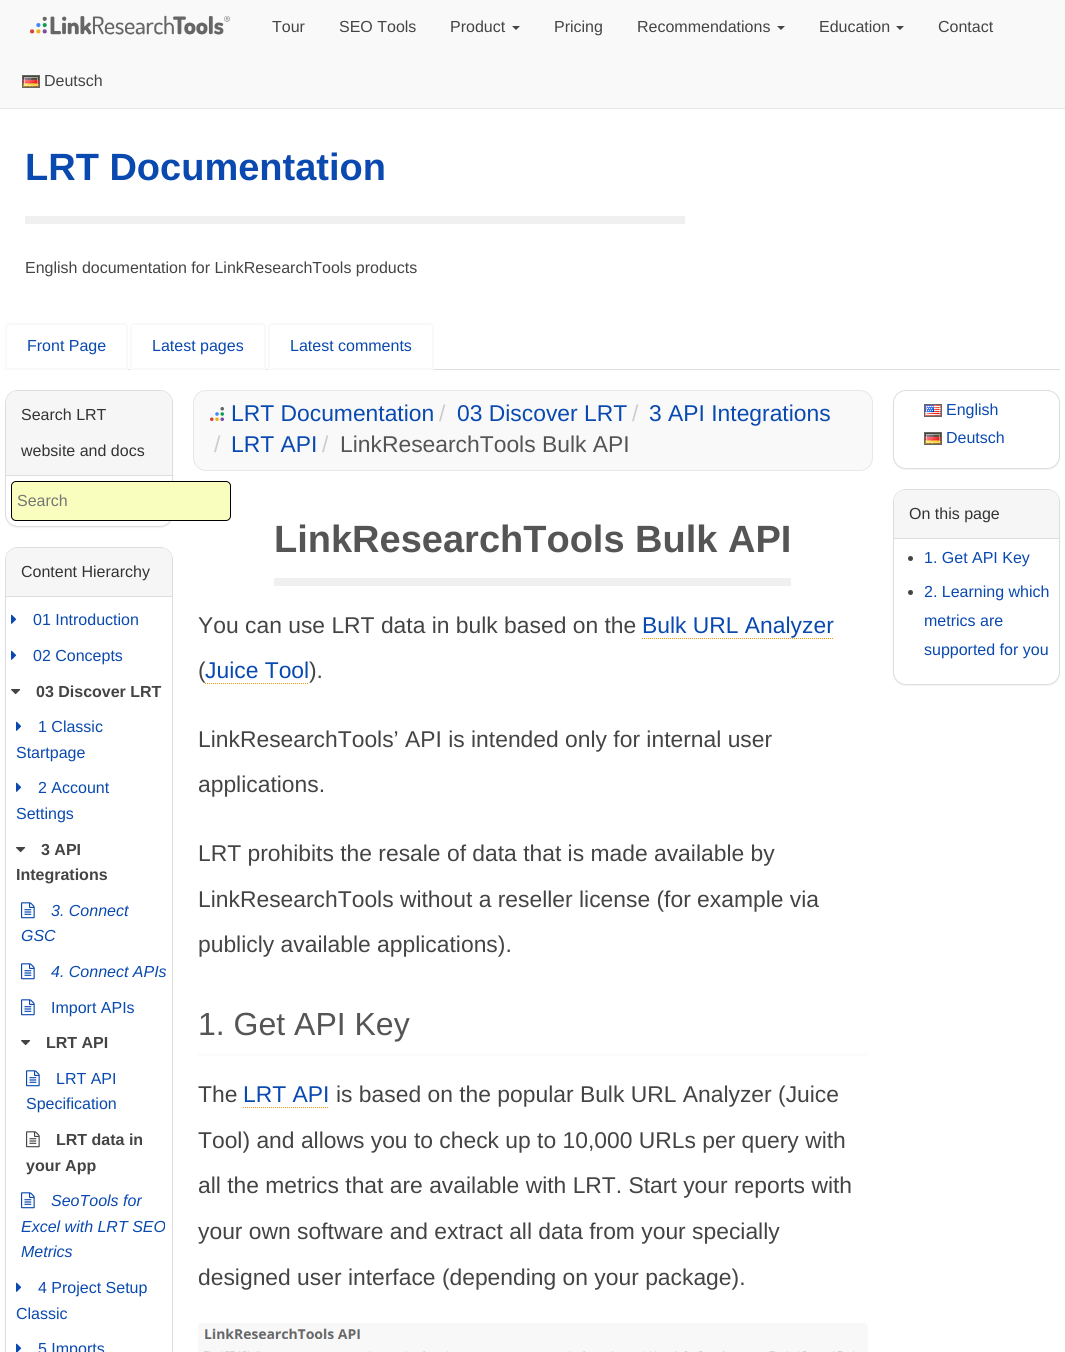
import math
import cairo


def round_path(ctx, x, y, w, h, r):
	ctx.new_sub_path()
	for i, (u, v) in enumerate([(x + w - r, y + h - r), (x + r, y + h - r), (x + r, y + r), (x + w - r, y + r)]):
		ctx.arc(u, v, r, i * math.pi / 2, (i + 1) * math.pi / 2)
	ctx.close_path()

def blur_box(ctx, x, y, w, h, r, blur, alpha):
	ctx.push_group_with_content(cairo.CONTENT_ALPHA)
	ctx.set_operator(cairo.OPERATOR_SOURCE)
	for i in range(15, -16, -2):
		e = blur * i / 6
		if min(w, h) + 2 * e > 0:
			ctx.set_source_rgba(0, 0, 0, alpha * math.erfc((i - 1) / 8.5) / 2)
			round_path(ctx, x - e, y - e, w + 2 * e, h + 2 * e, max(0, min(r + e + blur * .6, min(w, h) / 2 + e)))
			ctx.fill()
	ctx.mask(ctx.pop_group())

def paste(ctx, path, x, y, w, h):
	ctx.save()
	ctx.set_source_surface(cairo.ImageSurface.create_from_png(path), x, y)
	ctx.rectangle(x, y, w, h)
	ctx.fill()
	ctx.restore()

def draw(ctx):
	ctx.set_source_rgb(1, 1, 1)
	ctx.paint()
	ctx.set_source_rgb(0.973, 0.973, 0.973)
	ctx.rectangle(0, 0, 1065, 108)
	ctx.fill()
	ctx.set_source_rgb(0.906, 0.906, 0.906)
	ctx.rectangle(0, 108, 1065, 1)
	ctx.fill()
	paste(ctx, 'media/1.png', 30, 15, 200, 20)
	ctx.select_font_face('Liberation Sans')
	ctx.set_font_size(16)
	ctx.set_source_rgb(0.267, 0.267, 0.267)
	for x, y, s in [
		(272, 32, 'Tour'),
		(339, 32, 'SEO Tools'),
		(450, 32, 'Product'),
	]:
		ctx.move_to(x, y)
		ctx.show_text(s)
	ctx.new_path()
	ctx.move_to(512, 26)
	ctx.line_to(520, 26)
	ctx.line_to(516, 30)
	ctx.close_path()
	ctx.fill()
	ctx.move_to(554, 32)
	ctx.show_text('Pricing')
	ctx.move_to(637, 32)
	ctx.show_text('Recommendations')
	ctx.new_path()
	ctx.move_to(777, 26)
	ctx.line_to(785, 26)
	ctx.line_to(781, 30)
	ctx.close_path()
	ctx.fill()
	ctx.move_to(819, 32)
	ctx.show_text('Education')
	ctx.new_path()
	ctx.move_to(896, 26)
	ctx.line_to(904, 26)
	ctx.line_to(900, 30)
	ctx.close_path()
	ctx.fill()
	ctx.move_to(938, 32)
	ctx.show_text('Contact')
	paste(ctx, 'media/2.png', 23, 76, 16, 11)
	ctx.rectangle(22.5, 75.5, 17, 12)
	ctx.set_source_rgb(0.4, 0.4, 0.4)
	ctx.set_line_width(1)
	ctx.stroke()
	ctx.set_source_rgb(0.267, 0.267, 0.267)
	ctx.move_to(44, 86)
	ctx.show_text('Deutsch')
	ctx.set_source_rgb(0.941, 0.941, 0.941)
	ctx.rectangle(25, 216, 660, 8)
	ctx.fill()
	ctx.select_font_face('Liberation Sans', cairo.FONT_SLANT_NORMAL, cairo.FONT_WEIGHT_BOLD)
	ctx.set_font_size(38)
	ctx.set_source_rgb(0.039, 0.286, 0.69)
	ctx.move_to(25, 180)
	ctx.show_text('LRT Documentation')
	ctx.select_font_face('Liberation Sans')
	ctx.set_font_size(16)
	ctx.set_source_rgb(0.267, 0.267, 0.267)
	ctx.move_to(25, 273)
	ctx.show_text('English documentation for LinkResearchTools products')
	ctx.set_source_rgb(0.867, 0.867, 0.867)
	ctx.rectangle(128, 369, 932, 1)
	ctx.fill()
	ctx.new_path()
	ctx.move_to(9, 324)
	ctx.line_to(124, 324)
	ctx.curve_to(125.5, 324, 127, 325.5, 127, 327)
	ctx.line_to(127, 369)
	ctx.line_to(6, 369)
	ctx.line_to(6, 327)
	ctx.curve_to(6, 325.5, 7.5, 324, 9, 324)
	ctx.close_path()
	ctx.set_source_rgb(0.973, 0.973, 0.973)
	ctx.set_line_width(2)
	ctx.stroke()
	ctx.set_source_rgb(0.039, 0.286, 0.69)
	ctx.move_to(27, 351)
	ctx.show_text('Front Page')
	ctx.new_path()
	ctx.move_to(134, 324)
	ctx.line_to(262, 324)
	ctx.curve_to(263.5, 324, 265, 325.5, 265, 327)
	ctx.line_to(265, 369)
	ctx.line_to(131, 369)
	ctx.line_to(131, 327)
	ctx.curve_to(131, 325.5, 132.5, 324, 134, 324)
	ctx.close_path()
	ctx.set_source_rgb(0.973, 0.973, 0.973)
	ctx.stroke()
	ctx.set_source_rgb(0.039, 0.286, 0.69)
	ctx.move_to(152, 351)
	ctx.show_text('Latest pages')
	ctx.new_path()
	ctx.move_to(272, 324)
	ctx.line_to(430, 324)
	ctx.curve_to(431.5, 324, 433, 325.5, 433, 327)
	ctx.line_to(433, 369)
	ctx.line_to(269, 369)
	ctx.line_to(269, 327)
	ctx.curve_to(269, 325.5, 270.5, 324, 272, 324)
	ctx.close_path()
	ctx.set_source_rgb(0.973, 0.973, 0.973)
	ctx.stroke()
	ctx.set_source_rgb(0.039, 0.286, 0.69)
	ctx.move_to(290, 351)
	ctx.show_text('Latest comments')
	ctx.set_source_rgb(0, 0, 0)
	blur_box(ctx, 5, 391, 168, 137, 13, 0.5, 0.05)
	ctx.set_source_rgb(1, 1, 1)
	round_path(ctx, 5.5, 390.5, 167, 136, 12.5)
	ctx.fill_preserve()
	ctx.set_source_rgb(0.867, 0.867, 0.867)
	ctx.set_line_width(1)
	ctx.stroke()
	ctx.set_source_rgb(0.961, 0.961, 0.961)
	ctx.new_path()
	ctx.move_to(17, 391)
	ctx.line_to(161, 391)
	ctx.curve_to(167, 391, 172, 396, 172, 402)
	ctx.line_to(172, 476)
	ctx.line_to(6, 476)
	ctx.line_to(6, 402)
	ctx.curve_to(6, 396, 11, 391, 17, 391)
	ctx.close_path()
	ctx.fill()
	ctx.set_source_rgb(0.867, 0.867, 0.867)
	ctx.rectangle(6, 475, 166, 1)
	ctx.fill()
	ctx.set_source_rgb(0.2, 0.2, 0.2)
	ctx.move_to(21, 420)
	ctx.show_text('Search LRT')
	ctx.move_to(21, 456)
	ctx.show_text('website and docs')
	ctx.set_source_rgb(0.976, 0.996, 0.749)
	round_path(ctx, 11.5, 481.5, 219, 39, 4.5)
	ctx.fill_preserve()
	ctx.set_source_rgb(0, 0, 0)
	ctx.stroke()
	ctx.set_source_rgb(0.459, 0.459, 0.459)
	ctx.move_to(17, 506)
	ctx.show_text('Search')
	round_path(ctx, 5.5, 547.5, 167, 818, 12.5)
	ctx.set_source_rgb(0.867, 0.867, 0.867)
	ctx.stroke()
	ctx.set_source_rgb(0.961, 0.961, 0.961)
	ctx.new_path()
	ctx.move_to(17, 548)
	ctx.line_to(161, 548)
	ctx.curve_to(167, 548, 172, 553, 172, 559)
	ctx.line_to(172, 597)
	ctx.line_to(6, 597)
	ctx.line_to(6, 559)
	ctx.curve_to(6, 553, 11, 548, 17, 548)
	ctx.close_path()
	ctx.fill()
	ctx.set_source_rgb(0.867, 0.867, 0.867)
	ctx.rectangle(6, 596, 166, 1)
	ctx.fill()
	ctx.set_source_rgb(0.2, 0.2, 0.2)
	ctx.move_to(21, 577)
	ctx.show_text('Content Hierarchy')
	paste(ctx, 'media/3.png', 11, 614, 6, 10)
	ctx.set_source_rgb(0.039, 0.286, 0.69)
	ctx.move_to(33, 625)
	ctx.show_text('01 Introduction')
	paste(ctx, 'media/3.png', 11, 650, 6, 10)
	ctx.move_to(33, 661)
	ctx.show_text('02 Concepts')
	paste(ctx, 'media/4.png', 11, 689, 10, 6)
	ctx.select_font_face('Liberation Sans', cairo.FONT_SLANT_NORMAL, cairo.FONT_WEIGHT_BOLD)
	ctx.set_source_rgb(0.267, 0.267, 0.267)
	ctx.move_to(36, 697)
	ctx.show_text('03 Discover LRT')
	paste(ctx, 'media/3.png', 16, 721, 6, 10)
	ctx.select_font_face('Liberation Sans')
	ctx.set_source_rgb(0.039, 0.286, 0.69)
	ctx.move_to(38, 732)
	ctx.show_text('1 Classic')
	ctx.move_to(16, 758)
	ctx.show_text('Startpage')
	paste(ctx, 'media/3.png', 16, 782, 6, 10)
	ctx.move_to(38, 793)
	ctx.show_text('2 Account')
	ctx.move_to(16, 819)
	ctx.show_text('Settings')
	paste(ctx, 'media/4.png', 16, 847, 10, 6)
	ctx.select_font_face('Liberation Sans', cairo.FONT_SLANT_NORMAL, cairo.FONT_WEIGHT_BOLD)
	ctx.set_source_rgb(0.267, 0.267, 0.267)
	ctx.move_to(41, 855)
	ctx.show_text('3 API')
	ctx.move_to(16, 880)
	ctx.show_text('Integrations')
	paste(ctx, 'media/5.png', 21, 902, 14, 17)
	ctx.select_font_face('Liberation Sans', cairo.FONT_SLANT_ITALIC)
	ctx.set_source_rgb(0.039, 0.286, 0.69)
	ctx.move_to(51, 916)
	ctx.show_text('3. Connect')
	ctx.move_to(21, 941)
	ctx.show_text('GSC')
	paste(ctx, 'media/5.png', 21, 963, 14, 17)
	ctx.move_to(51, 977)
	ctx.show_text('4. Connect APIs')
	paste(ctx, 'media/5.png', 21, 999, 14, 17)
	ctx.select_font_face('Liberation Sans')
	ctx.move_to(51, 1013)
	ctx.show_text('Import APIs')
	paste(ctx, 'media/4.png', 21, 1040, 10, 6)
	ctx.select_font_face('Liberation Sans', cairo.FONT_SLANT_NORMAL, cairo.FONT_WEIGHT_BOLD)
	ctx.set_source_rgb(0.267, 0.267, 0.267)
	ctx.move_to(46, 1048)
	ctx.show_text('LRT API')
	paste(ctx, 'media/5.png', 26, 1070, 14, 17)
	ctx.select_font_face('Liberation Sans')
	ctx.set_source_rgb(0.039, 0.286, 0.69)
	ctx.move_to(56, 1084)
	ctx.show_text('LRT API')
	ctx.move_to(26, 1109)
	ctx.show_text('Specification')
	paste(ctx, 'media/6.png', 26, 1131, 14, 17)
	ctx.select_font_face('Liberation Sans', cairo.FONT_SLANT_NORMAL, cairo.FONT_WEIGHT_BOLD)
	ctx.set_source_rgb(0.267, 0.267, 0.267)
	ctx.move_to(56, 1145)
	ctx.show_text('LRT data in')
	ctx.move_to(26, 1171)
	ctx.show_text('your App')
	paste(ctx, 'media/5.png', 21, 1192, 14, 17)
	ctx.select_font_face('Liberation Sans', cairo.FONT_SLANT_ITALIC)
	ctx.set_source_rgb(0.039, 0.286, 0.69)
	for x, y, s in [
		(51, 1206, 'SeoTools for'),
		(21, 1232, 'Excel with LRT SEO'),
		(21, 1257, 'Metrics'),
	]:
		ctx.move_to(x, y)
		ctx.show_text(s)
	paste(ctx, 'media/3.png', 16, 1282, 6, 10)
	ctx.select_font_face('Liberation Sans')
	ctx.move_to(38, 1293)
	ctx.show_text('4 Project Setup')
	ctx.move_to(16, 1319)
	ctx.show_text('Classic')
	paste(ctx, 'media/7.png', 16, 1343, 6, 9)
	ctx.move_to(38, 1354)
	ctx.show_text('5 Imports')
	ctx.set_source_rgb(0.973, 0.973, 0.973)
	round_path(ctx, 193.5, 390.5, 679, 80, 12.5)
	ctx.fill_preserve()
	ctx.set_source_rgb(0.906, 0.906, 0.906)
	ctx.stroke()
	paste(ctx, 'media/8.png', 210, 407, 14, 14)
	ctx.set_font_size(22.85)
	ctx.set_source_rgb(0.039, 0.286, 0.69)
	ctx.move_to(231, 421)
	ctx.show_text('LRT Documentation')
	ctx.set_source_rgb(0.8, 0.8, 0.8)
	ctx.move_to(439, 421)
	ctx.show_text('/')
	ctx.set_source_rgb(0.039, 0.286, 0.69)
	ctx.move_to(457, 421)
	ctx.show_text('03 Discover LRT')
	ctx.set_source_rgb(0.8, 0.8, 0.8)
	ctx.move_to(632, 421)
	ctx.show_text('/')
	ctx.set_source_rgb(0.039, 0.286, 0.69)
	ctx.move_to(649, 421)
	ctx.show_text('3 API Integrations')
	ctx.set_source_rgb(0.8, 0.8, 0.8)
	ctx.move_to(214, 452)
	ctx.show_text('/')
	ctx.set_source_rgb(0.039, 0.286, 0.69)
	ctx.move_to(231, 452)
	ctx.show_text('LRT API')
	ctx.set_source_rgb(0.8, 0.8, 0.8)
	ctx.move_to(322, 452)
	ctx.show_text('/')
	ctx.set_source_rgb(0.333, 0.333, 0.333)
	ctx.move_to(340, 452)
	ctx.show_text('LinkResearchTools Bulk API')
	ctx.set_source_rgb(0.941, 0.941, 0.941)
	ctx.rectangle(274, 578, 517, 8)
	ctx.fill()
	ctx.select_font_face('Liberation Sans', cairo.FONT_SLANT_NORMAL, cairo.FONT_WEIGHT_BOLD)
	ctx.set_font_size(38)
	ctx.set_source_rgb(0.333, 0.333, 0.333)
	ctx.move_to(274, 552)
	ctx.show_text('LinkResearchTools Bulk API')
	ctx.select_font_face('Liberation Sans')
	ctx.set_font_size(22.85)
	ctx.set_source_rgb(0.267, 0.267, 0.267)
	ctx.move_to(198, 633)
	ctx.show_text('You can use LRT data in bulk based on the')
	ctx.set_source_rgb(0.039, 0.286, 0.69)
	ctx.move_to(642, 633)
	ctx.show_text('Bulk URL Analyzer')
	ctx.new_path()
	ctx.move_to(642, 638.5)
	ctx.line_to(833, 638.5)
	ctx.set_source_rgb(0.949, 0.596, 0.055)
	ctx.set_dash([1, 1])
	ctx.stroke()
	ctx.set_source_rgb(0.267, 0.267, 0.267)
	ctx.move_to(198, 678)
	ctx.show_text('(')
	ctx.set_source_rgb(0.039, 0.286, 0.69)
	ctx.move_to(205, 678)
	ctx.show_text('Juice Tool')
	ctx.new_path()
	ctx.move_to(205, 683.5)
	ctx.line_to(309, 683.5)
	ctx.set_source_rgb(0.949, 0.596, 0.055)
	ctx.stroke()
	ctx.set_source_rgb(0.267, 0.267, 0.267)
	for x, y, s in [
		(309, 678, ').'),
		(198, 747, 'LinkResearchTools’ API is intended only for internal user'),
		(198, 792, 'applications.'),
		(198, 861, 'LRT prohibits the resale of data that is made available by'),
		(198, 907, 'LinkResearchTools without a reseller license (for example via'),
		(198, 952, 'publicly available applications).'),
	]:
		ctx.move_to(x, y)
		ctx.show_text(s)
	ctx.set_source_rgb(0.988, 0.988, 0.988)
	ctx.rectangle(198, 1053, 670, 3)
	ctx.fill()
	ctx.set_font_size(32)
	ctx.set_source_rgb(0.333, 0.333, 0.333)
	ctx.move_to(198, 1035)
	ctx.show_text('1. Get API Key')
	ctx.set_font_size(22.85)
	ctx.set_source_rgb(0.267, 0.267, 0.267)
	ctx.move_to(198, 1102)
	ctx.show_text('The')
	ctx.set_source_rgb(0.039, 0.286, 0.69)
	ctx.move_to(243, 1102)
	ctx.show_text('LRT API')
	ctx.new_path()
	ctx.move_to(243, 1107.5)
	ctx.line_to(329, 1107.5)
	ctx.set_source_rgb(0.949, 0.596, 0.055)
	ctx.stroke()
	ctx.set_source_rgb(0.267, 0.267, 0.267)
	for x, y, s in [
		(336, 1102, 'is based on the popular Bulk URL Analyzer (Juice'),
		(198, 1148, 'Tool) and allows you to check up to 10,000 URLs per query with'),
		(198, 1193, 'all the metrics that are available with LRT. Start your reports with'),
		(198, 1239, 'your own software and extract all data from your specially'),
		(198, 1285, 'designed user interface (depending on your package).'),
	]:
		ctx.move_to(x, y)
		ctx.show_text(s)
	paste(ctx, 'media/9.png', 198, 1323, 670, 29)
	ctx.set_source_rgb(0, 0, 0)
	blur_box(ctx, 893, 391, 167, 79, 13, 0.5, 0.05)
	ctx.set_source_rgb(1, 1, 1)
	round_path(ctx, 893.5, 390.5, 166, 78, 12.5)
	ctx.fill_preserve()
	ctx.set_source_rgb(0.867, 0.867, 0.867)
	ctx.set_dash([])
	ctx.stroke()
	paste(ctx, 'media/10.png', 925, 405, 16, 11)
	ctx.rectangle(924.5, 404.5, 17, 12)
	ctx.set_source_rgb(0.4, 0.4, 0.4)
	ctx.stroke()
	ctx.set_font_size(16)
	ctx.set_source_rgb(0.039, 0.286, 0.69)
	ctx.move_to(946, 415)
	ctx.show_text('English')
	paste(ctx, 'media/2.png', 925, 433, 16, 11)
	ctx.rectangle(924.5, 432.5, 17, 12)
	ctx.set_source_rgb(0.4, 0.4, 0.4)
	ctx.stroke()
	ctx.set_source_rgb(0.039, 0.286, 0.69)
	ctx.move_to(946, 443)
	ctx.show_text('Deutsch')
	ctx.set_source_rgb(0, 0, 0)
	blur_box(ctx, 893, 490, 167, 196, 13, 0.5, 0.05)
	ctx.set_source_rgb(1, 1, 1)
	round_path(ctx, 893.5, 489.5, 166, 195, 12.5)
	ctx.fill_preserve()
	ctx.set_source_rgb(0.867, 0.867, 0.867)
	ctx.stroke()
	ctx.set_source_rgb(0.961, 0.961, 0.961)
	ctx.new_path()
	ctx.move_to(905, 490)
	ctx.line_to(1048, 490)
	ctx.curve_to(1054, 490, 1059, 495, 1059, 501)
	ctx.line_to(1059, 539)
	ctx.line_to(894, 539)
	ctx.line_to(894, 501)
	ctx.curve_to(894, 495, 899, 490, 905, 490)
	ctx.close_path()
	ctx.fill()
	ctx.set_source_rgb(0.867, 0.867, 0.867)
	ctx.rectangle(894, 538, 165, 1)
	ctx.fill()
	ctx.set_source_rgb(0.2, 0.2, 0.2)
	ctx.move_to(909, 519)
	ctx.show_text('On this page')
	ctx.set_source_rgb(0.267, 0.267, 0.267)
	ctx.new_path()
	ctx.arc(910.5, 558.5, 2.5, 0, 2 * math.pi)
	ctx.fill()
	ctx.set_source_rgb(0.039, 0.286, 0.69)
	ctx.move_to(924, 563)
	ctx.show_text('1. Get API Key')
	ctx.set_source_rgb(0.267, 0.267, 0.267)
	ctx.new_path()
	ctx.arc(910.5, 592.5, 2.5, 0, 2 * math.pi)
	ctx.fill()
	ctx.set_source_rgb(0.039, 0.286, 0.69)
	for x, y, s in [
		(924, 597, '2. Learning which'),
		(924, 626, 'metrics are'),
		(924, 655, 'supported for you'),
	]:
		ctx.move_to(x, y)
		ctx.show_text(s)


surface = cairo.ImageSurface(cairo.FORMAT_RGB24, 1065, 1352)
ctx = cairo.Context(surface)
options = cairo.FontOptions()
options.set_hint_metrics(cairo.HINT_METRICS_OFF)
options.set_hint_style(cairo.HINT_STYLE_NONE)
ctx.set_font_options(options)
ctx.set_miter_limit(4)
draw(ctx)
surface.write_to_png('image.png')
